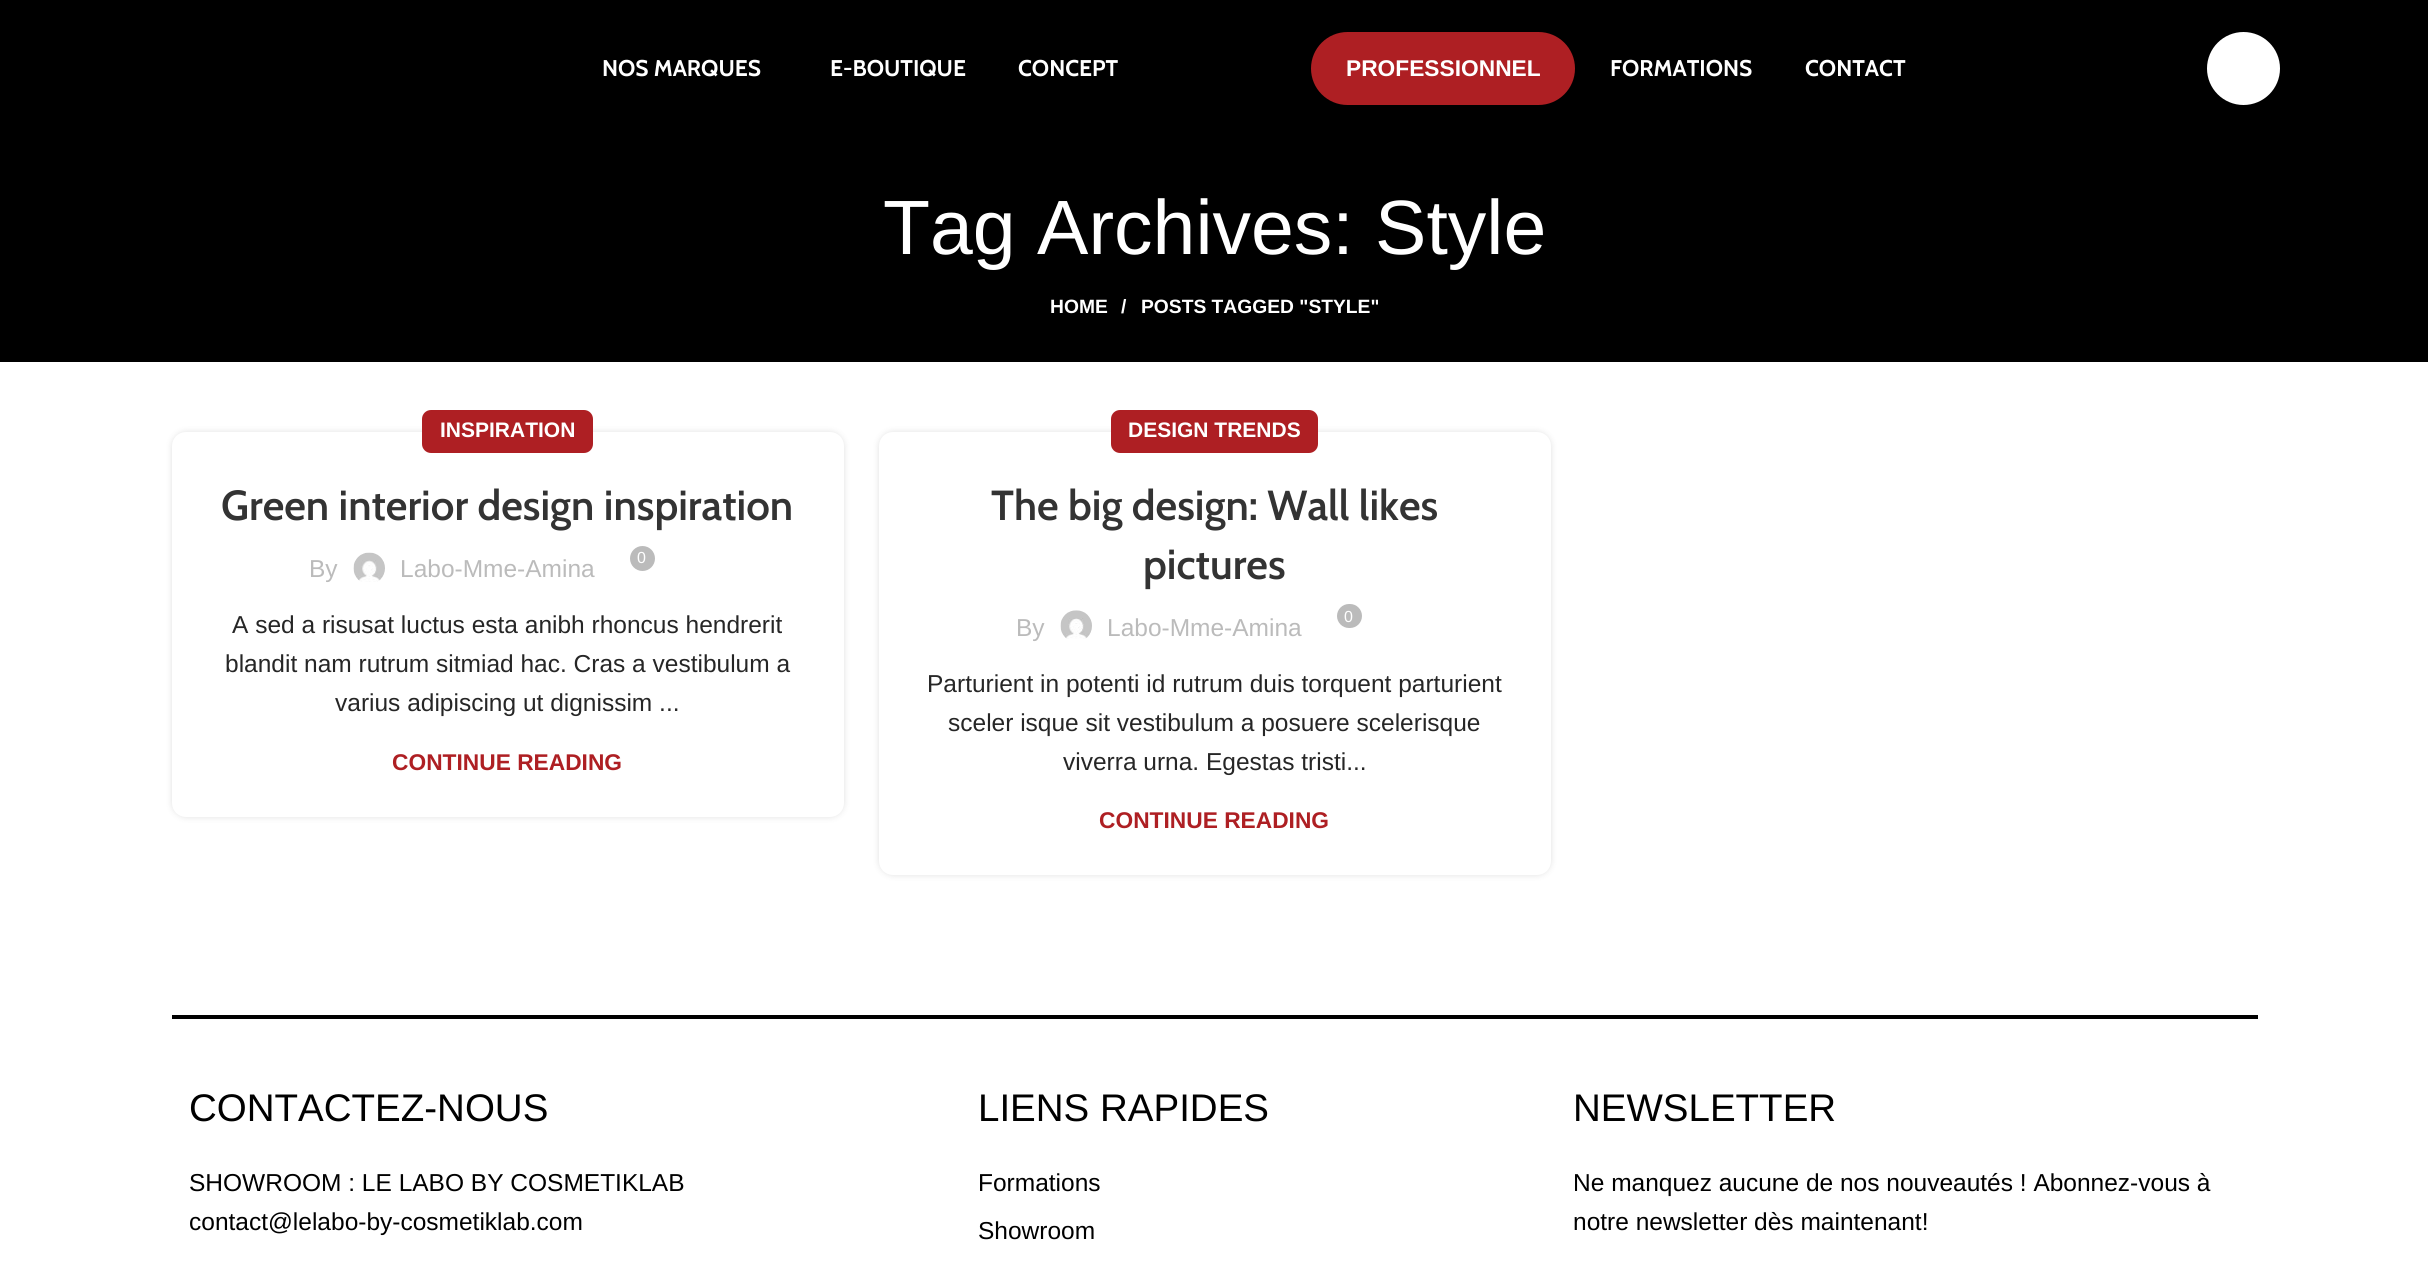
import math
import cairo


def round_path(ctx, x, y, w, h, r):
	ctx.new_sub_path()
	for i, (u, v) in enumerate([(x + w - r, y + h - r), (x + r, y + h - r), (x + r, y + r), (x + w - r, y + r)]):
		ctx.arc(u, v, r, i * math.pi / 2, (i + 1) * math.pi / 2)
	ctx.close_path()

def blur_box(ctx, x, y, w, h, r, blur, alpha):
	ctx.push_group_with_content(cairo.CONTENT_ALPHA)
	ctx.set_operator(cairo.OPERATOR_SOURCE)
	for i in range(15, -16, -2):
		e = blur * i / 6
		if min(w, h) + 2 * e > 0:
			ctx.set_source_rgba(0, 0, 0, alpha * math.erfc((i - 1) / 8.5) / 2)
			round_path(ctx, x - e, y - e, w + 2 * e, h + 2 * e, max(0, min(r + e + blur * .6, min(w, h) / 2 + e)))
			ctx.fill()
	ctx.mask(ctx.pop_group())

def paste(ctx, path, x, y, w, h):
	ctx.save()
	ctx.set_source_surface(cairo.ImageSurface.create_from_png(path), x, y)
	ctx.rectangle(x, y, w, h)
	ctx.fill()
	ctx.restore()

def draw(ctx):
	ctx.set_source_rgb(1, 1, 1)
	ctx.paint()
	ctx.set_source_rgb(0, 0, 0)
	ctx.rectangle(0, 0, 2428, 362)
	ctx.fill()
	ctx.select_font_face('Cabin', cairo.FONT_SLANT_NORMAL, cairo.FONT_WEIGHT_BOLD)
	ctx.set_font_size(22.75)
	ctx.set_source_rgb(1, 1, 1)
	for x, y, s in [
		(602, 76, 'NOS MARQUES'),
		(830, 76, 'E-BOUTIQUE'),
		(1018, 76, 'CONCEPT'),
	]:
		ctx.move_to(x, y)
		ctx.show_text(s)
	ctx.set_source_rgb(0.682, 0.122, 0.137)
	round_path(ctx, 1311, 32, 264, 73, 36.5)
	ctx.fill()
	ctx.select_font_face('Liberation Sans', cairo.FONT_SLANT_NORMAL, cairo.FONT_WEIGHT_BOLD)
	ctx.set_source_rgb(1, 1, 1)
	ctx.move_to(1346, 76)
	ctx.show_text('PROFESSIONNEL')
	ctx.select_font_face('Cabin', cairo.FONT_SLANT_NORMAL, cairo.FONT_WEIGHT_BOLD)
	ctx.move_to(1610, 76)
	ctx.show_text('FORMATIONS')
	ctx.move_to(1805, 76)
	ctx.show_text('CONTACT')
	ctx.new_path()
	ctx.arc(2243.5, 68.5, 36.5, 0, 2 * math.pi)
	ctx.fill()
	ctx.select_font_face('Liberation Sans')
	ctx.set_font_size(77)
	ctx.move_to(883, 254)
	ctx.show_text('Tag Archives: Style')
	ctx.select_font_face('Liberation Sans', cairo.FONT_SLANT_NORMAL, cairo.FONT_WEIGHT_BOLD)
	ctx.set_font_size(19.25)
	for x, y, s in [
		(1050, 313, 'HOME'),
		(1121, 313, '/'),
		(1141, 313, 'POSTS TAGGED "STYLE"'),
	]:
		ctx.move_to(x, y)
		ctx.show_text(s)
	ctx.set_source_rgb(0, 0, 0)
	blur_box(ctx, 172, 432, 672, 385, 14, 3.5, 0.12)
	ctx.set_source_rgb(1, 1, 1)
	round_path(ctx, 172, 432, 672, 385, 14)
	ctx.fill()
	ctx.set_source_rgb(0.682, 0.122, 0.137)
	round_path(ctx, 422, 410, 171, 43, 9)
	ctx.fill()
	ctx.set_font_size(21)
	ctx.set_source_rgb(1, 1, 1)
	ctx.move_to(440, 437)
	ctx.show_text('INSPIRATION')
	ctx.select_font_face('Cabin SemiBold')
	ctx.set_font_size(42)
	ctx.set_source_rgb(0.2, 0.2, 0.2)
	ctx.move_to(221, 520)
	ctx.show_text('Green interior design inspiration')
	ctx.select_font_face('Liberation Sans')
	ctx.set_font_size(24.5)
	ctx.set_source_rgb(0.733, 0.733, 0.733)
	ctx.move_to(309, 577)
	ctx.show_text('By')
	paste(ctx, 'media/1.png', 353, 552, 32, 30)
	ctx.move_to(400, 577)
	ctx.show_text('Labo-Mme-Amina')
	ctx.new_path()
	ctx.arc(642.5, 558.5, 12.5, 0, 2 * math.pi)
	ctx.fill()
	ctx.set_font_size(16)
	ctx.set_source_rgb(1, 1, 1)
	ctx.move_to(637, 563)
	ctx.show_text('0')
	ctx.set_font_size(24.5)
	ctx.set_source_rgb(0.149, 0.149, 0.149)
	for x, y, s in [
		(232, 633, 'A sed a risusat luctus esta anibh rhoncus hendrerit'),
		(225, 672, 'blandit nam rutrum sitmiad hac. Cras a vestibulum a'),
		(335, 711, 'varius adipiscing ut dignissim ...'),
	]:
		ctx.move_to(x, y)
		ctx.show_text(s)
	ctx.select_font_face('Liberation Sans', cairo.FONT_SLANT_NORMAL, cairo.FONT_WEIGHT_BOLD)
	ctx.set_font_size(22.75)
	ctx.set_source_rgb(0.682, 0.122, 0.137)
	ctx.move_to(392, 770)
	ctx.show_text('CONTINUE READING')
	ctx.set_source_rgb(0, 0, 0)
	blur_box(ctx, 879, 432, 672, 443, 14, 3.5, 0.12)
	ctx.set_source_rgb(1, 1, 1)
	round_path(ctx, 879, 432, 672, 443, 14)
	ctx.fill()
	ctx.set_source_rgb(0.682, 0.122, 0.137)
	round_path(ctx, 1111, 410, 207, 43, 9)
	ctx.fill()
	ctx.set_font_size(21)
	ctx.set_source_rgb(1, 1, 1)
	ctx.move_to(1128, 437)
	ctx.show_text('DESIGN TRENDS')
	ctx.select_font_face('Cabin SemiBold')
	ctx.set_font_size(42)
	ctx.set_source_rgb(0.2, 0.2, 0.2)
	ctx.move_to(991, 520)
	ctx.show_text('The big design: Wall likes')
	ctx.move_to(1143, 579)
	ctx.show_text('pictures')
	ctx.select_font_face('Liberation Sans')
	ctx.set_font_size(24.5)
	ctx.set_source_rgb(0.733, 0.733, 0.733)
	ctx.move_to(1016, 636)
	ctx.show_text('By')
	paste(ctx, 'media/2.png', 1060, 610, 32, 29)
	ctx.move_to(1107, 636)
	ctx.show_text('Labo-Mme-Amina')
	round_path(ctx, 1337, 604, 25, 24, 12)
	ctx.fill()
	ctx.set_font_size(16)
	ctx.set_source_rgb(1, 1, 1)
	ctx.move_to(1344, 622)
	ctx.show_text('0')
	ctx.set_font_size(24.5)
	ctx.set_source_rgb(0.149, 0.149, 0.149)
	for x, y, s in [
		(927, 692, 'Parturient in potenti id rutrum duis torquent parturient'),
		(948, 731, 'sceler isque sit vestibulum a posuere scelerisque'),
		(1063, 770, 'viverra urna. Egestas tristi...'),
	]:
		ctx.move_to(x, y)
		ctx.show_text(s)
	ctx.select_font_face('Liberation Sans', cairo.FONT_SLANT_NORMAL, cairo.FONT_WEIGHT_BOLD)
	ctx.set_font_size(22.75)
	ctx.set_source_rgb(0.682, 0.122, 0.137)
	ctx.move_to(1099, 828)
	ctx.show_text('CONTINUE READING')
	ctx.set_source_rgb(0, 0, 0)
	ctx.rectangle(172, 1015, 2086, 4)
	ctx.fill()
	ctx.select_font_face('Liberation Sans')
	ctx.set_font_size(38.5)
	ctx.move_to(189, 1121)
	ctx.show_text('CONTACTEZ-NOUS')
	ctx.set_font_size(24.5)
	ctx.move_to(189, 1191)
	ctx.show_text('SHOWROOM : LE LABO BY COSMETIKLAB')
	ctx.move_to(189, 1230)
	ctx.show_text('contact@lelabo-by-cosmetiklab.com')
	ctx.set_font_size(38.5)
	ctx.move_to(978, 1121)
	ctx.show_text('LIENS RAPIDES')
	ctx.set_font_size(24.5)
	ctx.move_to(978, 1191)
	ctx.show_text('Formations')
	ctx.move_to(978, 1239)
	ctx.show_text('Showroom')
	ctx.set_font_size(38.5)
	ctx.move_to(1573, 1121)
	ctx.show_text('NEWSLETTER')
	ctx.set_font_size(24.5)
	ctx.move_to(1573, 1191)
	ctx.show_text('Ne manquez aucune de nos nouveautés ! Abonnez-vous à')
	ctx.move_to(1573, 1230)
	ctx.show_text('notre newsletter dès maintenant!')


surface = cairo.ImageSurface(cairo.FORMAT_RGB24, 2428, 1262)
ctx = cairo.Context(surface)
options = cairo.FontOptions()
options.set_hint_metrics(cairo.HINT_METRICS_OFF)
options.set_hint_style(cairo.HINT_STYLE_NONE)
ctx.set_font_options(options)
ctx.set_miter_limit(4)
draw(ctx)
surface.write_to_png('image.png')
